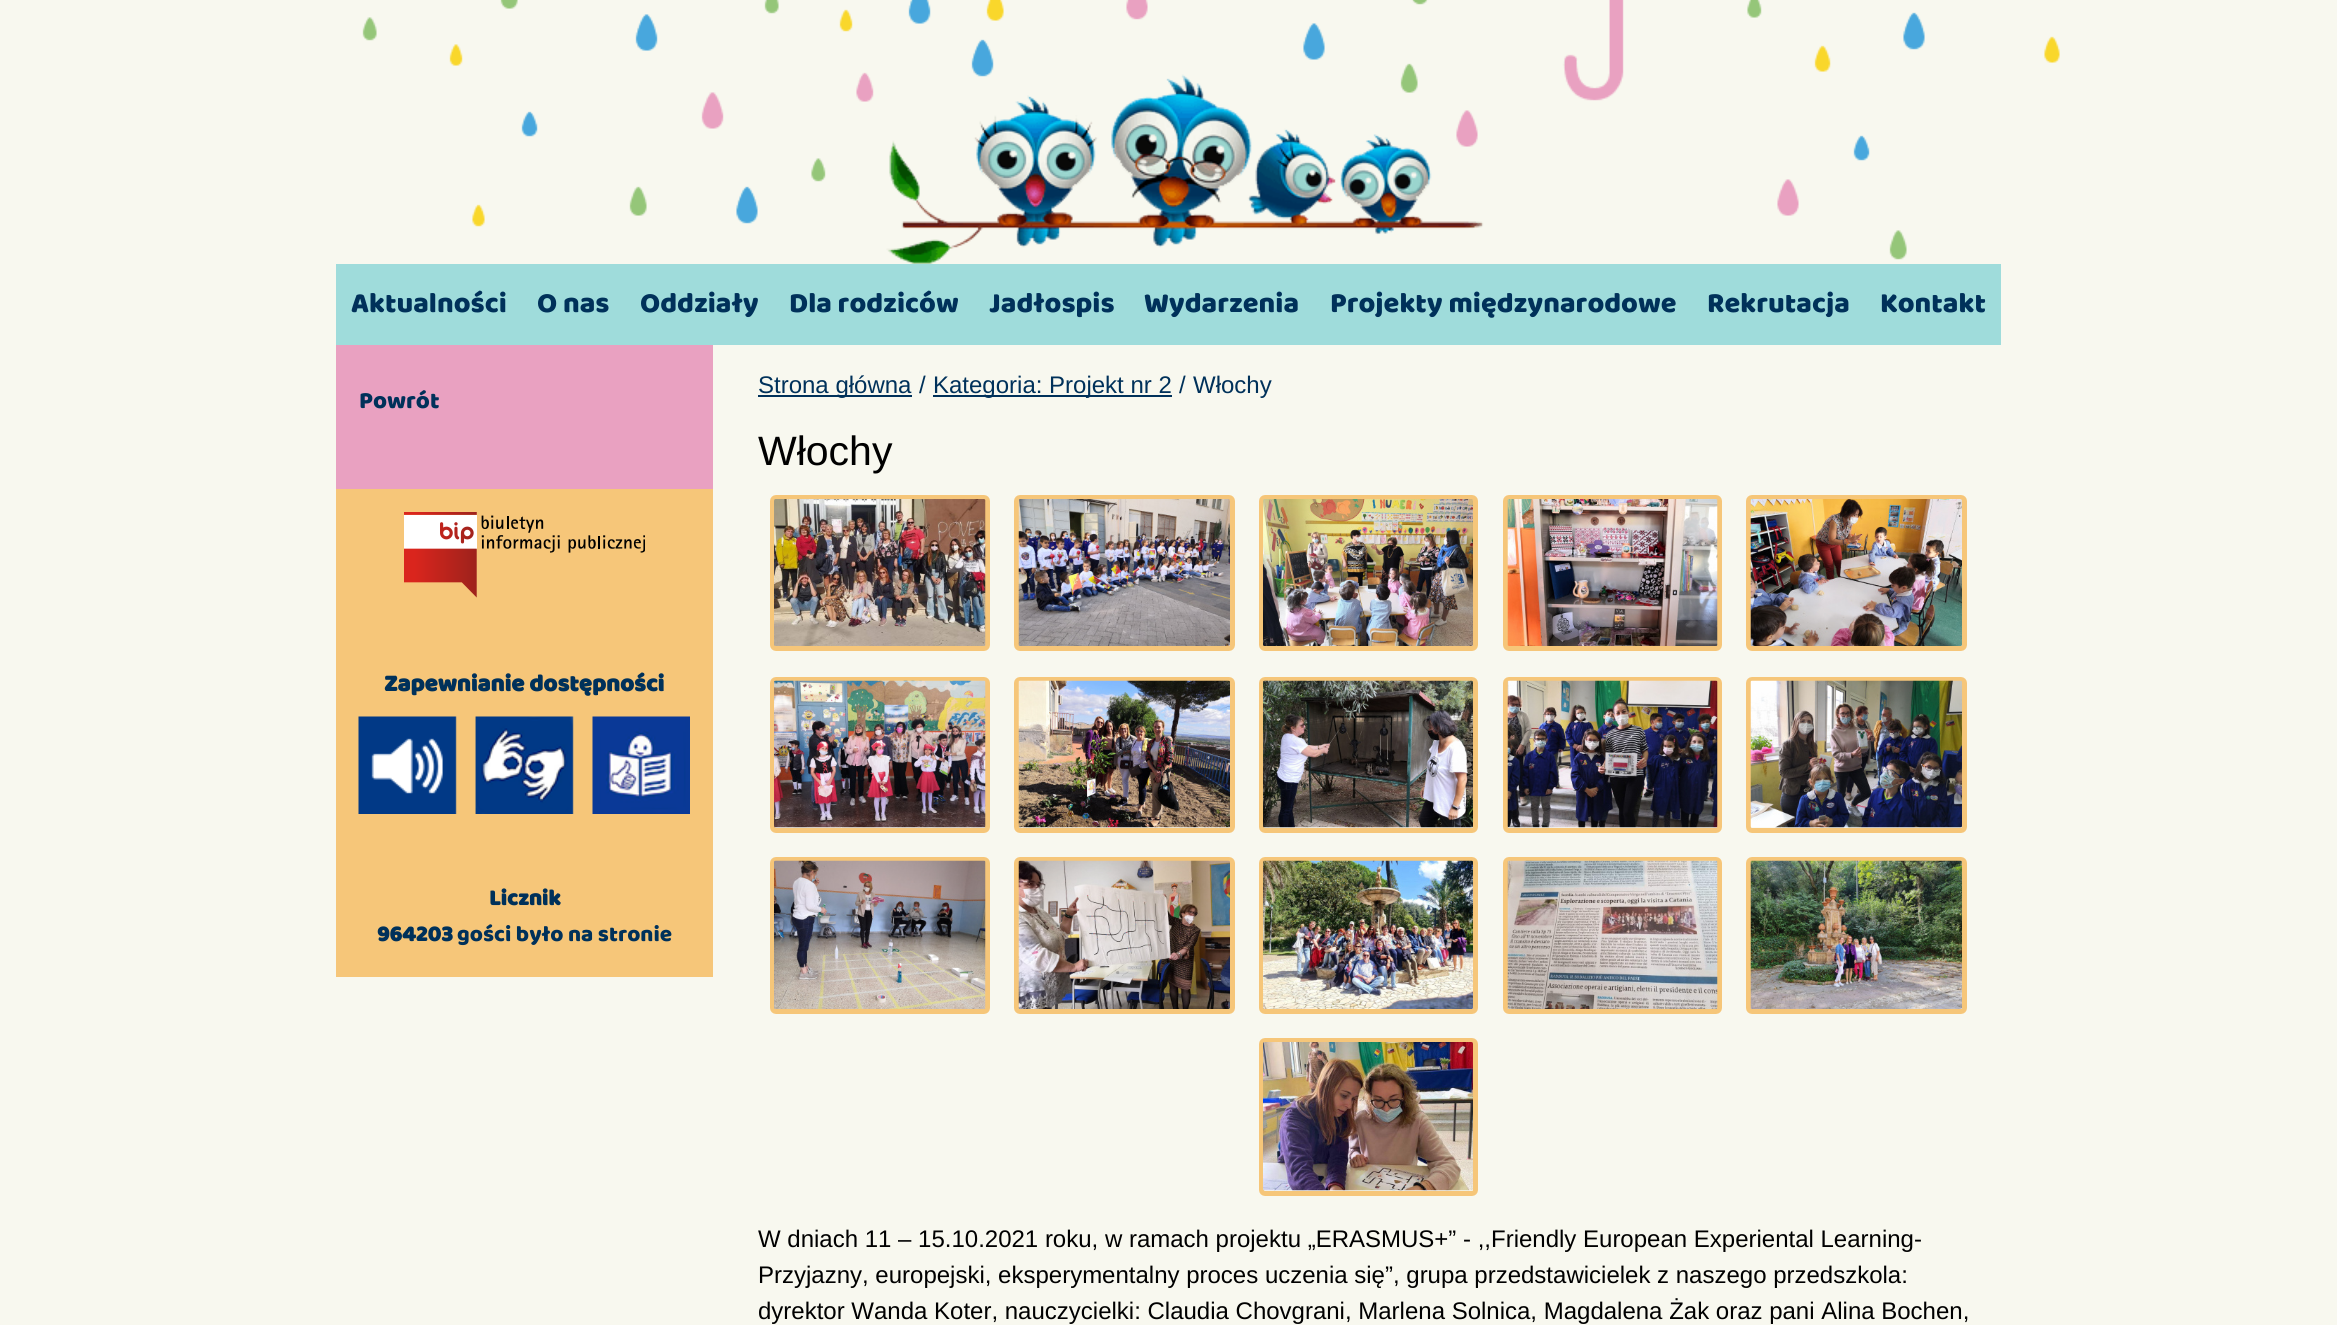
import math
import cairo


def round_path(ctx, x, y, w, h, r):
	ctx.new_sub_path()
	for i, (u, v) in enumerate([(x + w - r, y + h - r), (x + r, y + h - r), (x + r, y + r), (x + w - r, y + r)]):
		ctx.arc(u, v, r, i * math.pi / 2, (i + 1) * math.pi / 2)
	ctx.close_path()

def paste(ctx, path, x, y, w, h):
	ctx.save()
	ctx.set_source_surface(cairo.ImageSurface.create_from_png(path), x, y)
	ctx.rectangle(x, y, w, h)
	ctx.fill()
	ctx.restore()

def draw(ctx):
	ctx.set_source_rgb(0.969, 0.969, 0.937)
	ctx.paint()
	paste(ctx, 'media/1.png', 362, 0, 1698, 264)
	ctx.set_source_rgb(0.624, 0.863, 0.859)
	ctx.rectangle(336, 264, 1665, 81)
	ctx.fill()
	ctx.select_font_face('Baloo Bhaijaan')
	ctx.set_font_size(28.75)
	ctx.set_source_rgb(0, 0.192, 0.353)
	for x, y, s in [
		(351, 312, 'Aktualności'),
		(537, 312, 'O nas'),
		(640, 312, 'Oddziały'),
		(789, 312, 'Dla rodziców'),
		(989, 312, 'Jadłospis'),
		(1144, 312, 'Wydarzenia'),
		(1330, 312, 'Projekty międzynarodowe'),
		(1707, 312, 'Rekrutacja'),
		(1880, 312, 'Kontakt'),
	]:
		ctx.move_to(x, y)
		ctx.show_text(s)
	ctx.set_source_rgb(0.914, 0.631, 0.757)
	ctx.rectangle(336, 345, 377, 144)
	ctx.fill()
	ctx.set_font_size(24)
	ctx.set_source_rgb(0, 0.192, 0.353)
	ctx.move_to(359, 408)
	ctx.show_text('Powrót')
	ctx.set_source_rgb(0.961, 0.776, 0.475)
	ctx.rectangle(336, 489, 377, 488)
	ctx.fill()
	paste(ctx, 'media/2.png', 404, 512, 241, 86)
	ctx.select_font_face('Baloo Bhaijaan', cairo.FONT_SLANT_NORMAL, cairo.FONT_WEIGHT_BOLD)
	ctx.set_source_rgb(0, 0.192, 0.353)
	ctx.move_to(384, 691)
	ctx.show_text('Zapewnianie dostępności')
	paste(ctx, 'media/3.png', 358, 716, 332, 98)
	ctx.set_font_size(22.5)
	ctx.move_to(489, 905)
	ctx.show_text('Licznik')
	ctx.move_to(377, 941)
	ctx.show_text('964203')
	ctx.select_font_face('Baloo Bhaijaan')
	ctx.move_to(457, 941)
	ctx.show_text('gości było na stronie')
	ctx.rectangle(758, 395, 154, 2)
	ctx.fill()
	ctx.select_font_face('Liberation Sans')
	ctx.set_font_size(24)
	ctx.move_to(758, 393)
	ctx.show_text('Strona główna')
	ctx.move_to(919, 393)
	ctx.show_text('/')
	ctx.rectangle(933, 395, 239, 2)
	ctx.fill()
	for x, y, s in [
		(933, 393, 'Kategoria: Projekt nr 2'),
		(1179, 393, '/'),
		(1193, 393, 'Włochy'),
	]:
		ctx.move_to(x, y)
		ctx.show_text(s)
	ctx.set_font_size(41)
	ctx.set_source_rgb(0, 0, 0)
	ctx.move_to(758, 465)
	ctx.show_text('Włochy')
	round_path(ctx, 772.5, 497.5, 215, 151, 3.5)
	ctx.set_source_rgb(0.961, 0.776, 0.475)
	ctx.set_line_width(5)
	ctx.stroke()
	paste(ctx, 'media/4.png', 774, 499, 212, 147)
	round_path(ctx, 1016.5, 497.5, 216, 151, 3.5)
	ctx.stroke()
	paste(ctx, 'media/5.png', 1018, 499, 212, 147)
	round_path(ctx, 1261.5, 497.5, 214, 151, 3.5)
	ctx.stroke()
	paste(ctx, 'media/6.png', 1263, 499, 210, 147)
	round_path(ctx, 1505.5, 497.5, 214, 151, 3.5)
	ctx.stroke()
	paste(ctx, 'media/7.png', 1507, 499, 211, 147)
	round_path(ctx, 1748.5, 497.5, 216, 151, 3.5)
	ctx.stroke()
	paste(ctx, 'media/8.png', 1750, 499, 212, 147)
	round_path(ctx, 772.5, 679.5, 215, 151, 3.5)
	ctx.stroke()
	paste(ctx, 'media/9.png', 774, 680, 212, 148)
	round_path(ctx, 1016.5, 679.5, 216, 151, 3.5)
	ctx.stroke()
	paste(ctx, 'media/10.png', 1018, 680, 212, 148)
	round_path(ctx, 1261.5, 679.5, 214, 151, 3.5)
	ctx.stroke()
	paste(ctx, 'media/11.png', 1263, 680, 210, 148)
	round_path(ctx, 1505.5, 679.5, 214, 151, 3.5)
	ctx.stroke()
	paste(ctx, 'media/12.png', 1507, 680, 211, 148)
	round_path(ctx, 1748.5, 679.5, 216, 151, 3.5)
	ctx.stroke()
	paste(ctx, 'media/13.png', 1750, 680, 212, 148)
	round_path(ctx, 772.5, 859.5, 215, 152, 3.5)
	ctx.stroke()
	paste(ctx, 'media/14.png', 774, 860, 212, 149)
	round_path(ctx, 1016.5, 859.5, 216, 152, 3.5)
	ctx.stroke()
	paste(ctx, 'media/15.png', 1018, 860, 212, 149)
	round_path(ctx, 1261.5, 859.5, 214, 152, 3.5)
	ctx.stroke()
	paste(ctx, 'media/16.png', 1263, 860, 210, 149)
	round_path(ctx, 1505.5, 859.5, 214, 152, 3.5)
	ctx.stroke()
	paste(ctx, 'media/17.png', 1507, 860, 211, 149)
	round_path(ctx, 1748.5, 859.5, 216, 152, 3.5)
	ctx.stroke()
	paste(ctx, 'media/18.png', 1750, 860, 212, 149)
	round_path(ctx, 1261.5, 1040.5, 214, 153, 3.5)
	ctx.stroke()
	paste(ctx, 'media/19.png', 1263, 1042, 210, 149)
	ctx.set_font_size(24)
	ctx.set_source_rgb(0, 0, 0)
	for x, y, s in [
		(758, 1247, 'W dniach 11 – 15.10.2021 roku, w ramach projektu „ERASMUS+” - ,,Friendly European Experiental Learning-'),
		(758, 1283, 'Przyjazny, europejski, eksperymentalny proces uczenia się”, grupa przedstawicielek z naszego przedszkola:'),
		(758, 1319, 'dyrektor Wanda Koter, nauczycielki: Claudia Chovgrani, Marlena Solnica, Magdalena Żak oraz pani Alina Bochen,'),
	]:
		ctx.move_to(x, y)
		ctx.show_text(s)


surface = cairo.ImageSurface(cairo.FORMAT_RGB24, 2337, 1325)
ctx = cairo.Context(surface)
options = cairo.FontOptions()
options.set_hint_metrics(cairo.HINT_METRICS_OFF)
options.set_hint_style(cairo.HINT_STYLE_NONE)
ctx.set_font_options(options)
ctx.set_miter_limit(4)
draw(ctx)
surface.write_to_png('image.png')
